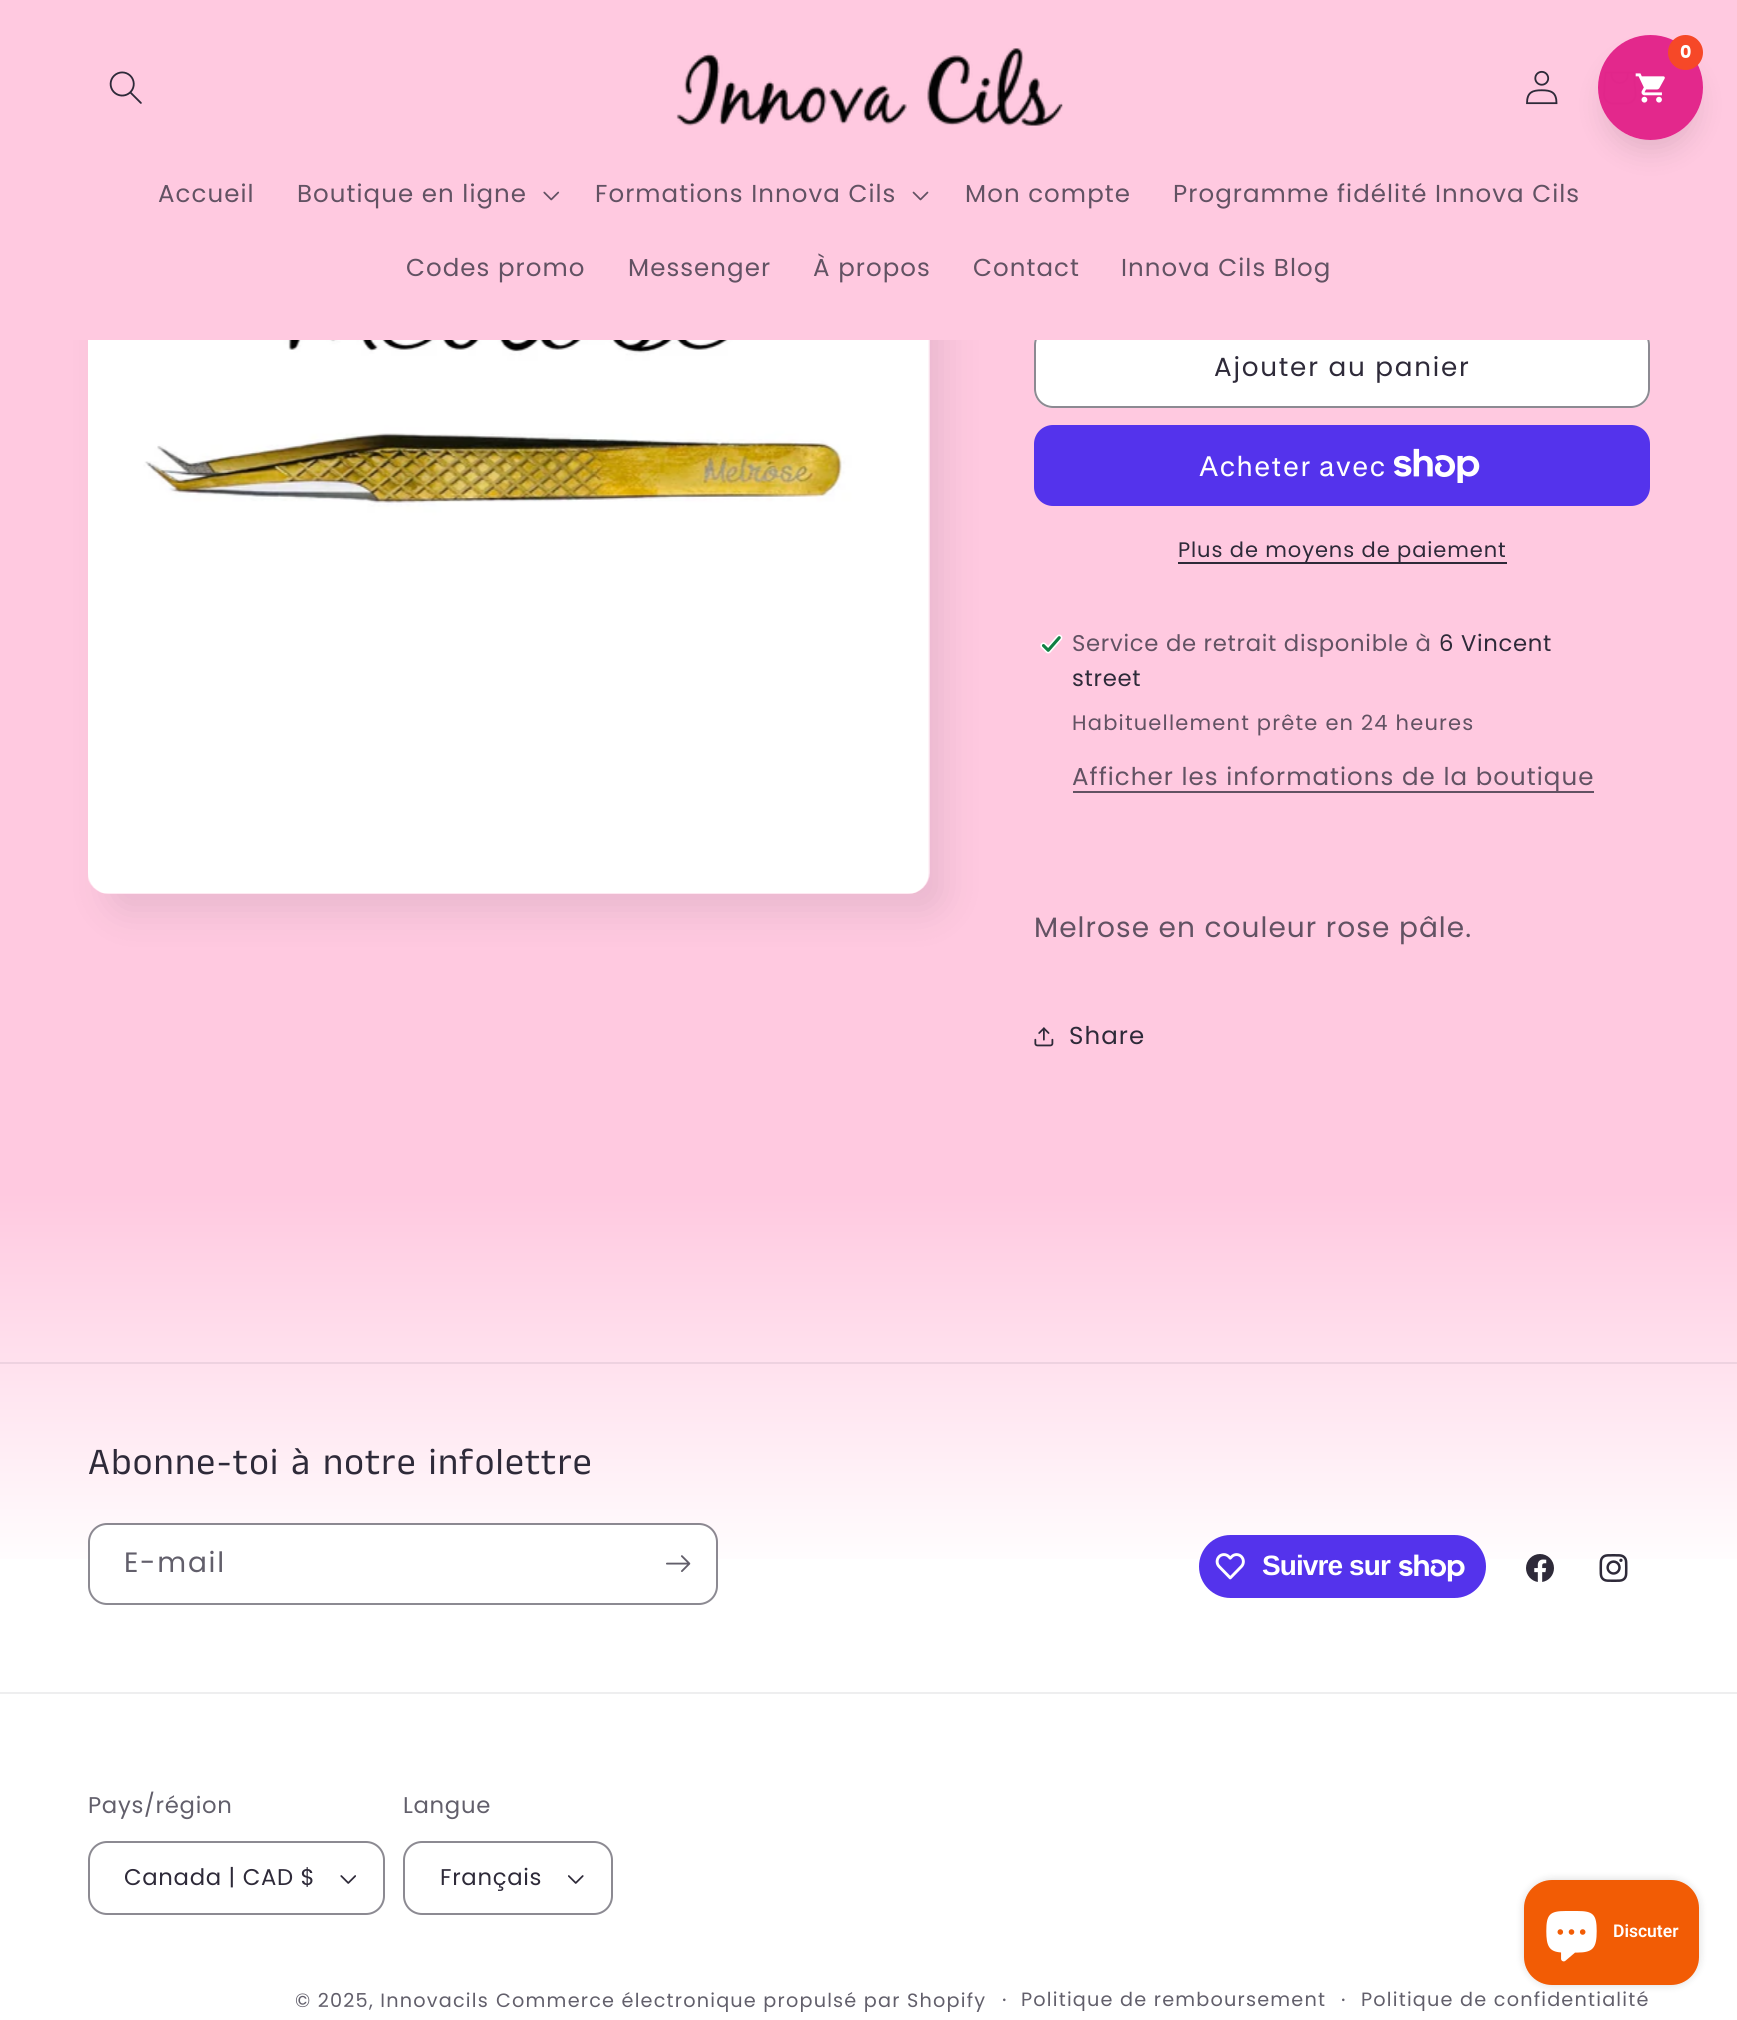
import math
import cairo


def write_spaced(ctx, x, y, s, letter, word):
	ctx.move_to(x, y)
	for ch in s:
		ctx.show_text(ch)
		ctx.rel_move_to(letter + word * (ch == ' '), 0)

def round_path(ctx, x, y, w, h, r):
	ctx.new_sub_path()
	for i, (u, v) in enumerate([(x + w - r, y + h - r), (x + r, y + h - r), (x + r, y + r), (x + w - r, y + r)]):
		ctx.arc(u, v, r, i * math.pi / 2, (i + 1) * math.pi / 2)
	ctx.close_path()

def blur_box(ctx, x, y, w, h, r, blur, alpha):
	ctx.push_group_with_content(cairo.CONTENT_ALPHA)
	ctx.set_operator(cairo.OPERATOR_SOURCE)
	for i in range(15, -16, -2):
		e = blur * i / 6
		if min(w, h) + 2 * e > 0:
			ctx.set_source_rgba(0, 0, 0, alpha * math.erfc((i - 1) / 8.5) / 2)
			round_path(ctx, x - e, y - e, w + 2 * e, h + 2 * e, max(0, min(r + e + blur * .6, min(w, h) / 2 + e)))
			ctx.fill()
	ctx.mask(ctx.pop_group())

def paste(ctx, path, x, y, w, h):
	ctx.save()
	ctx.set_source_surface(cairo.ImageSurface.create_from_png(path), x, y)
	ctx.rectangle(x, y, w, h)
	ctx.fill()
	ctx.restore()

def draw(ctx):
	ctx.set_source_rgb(1, 1, 1)
	ctx.paint()
	gradient = cairo.LinearGradient(869, 0, 869, 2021)
	gradient.add_color_stop_rgba(0.59, 1, 0.788, 0.878, 1)
	gradient.add_color_stop_rgba(0.78, 1, 1, 1, 1)
	ctx.set_source(gradient)
	ctx.rectangle(0, 340, 1737, 1219)
	ctx.fill()
	ctx.set_source_rgb(0.18, 0.165, 0.224)
	blur_box(ctx, 105, 74, 842, 841, 21, 17.5, 0.1)
	gradient = cairo.LinearGradient(869, 0, 869, 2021)
	gradient.add_color_stop_rgba(0.59, 1, 0.788, 0.878, 1)
	gradient.add_color_stop_rgba(0.78, 1, 1, 1, 1)
	ctx.set_source(gradient)
	round_path(ctx, 88, 53, 841, 841, 21)
	ctx.fill()
	ctx.set_source_rgb(1, 1, 1)
	round_path(ctx, 1034, 326, 616, 82, 19)
	ctx.fill()
	round_path(ctx, 1035, 327, 614, 80, 18)
	ctx.stroke()
	round_path(ctx, 1035, 327, 614, 80, 18)
	ctx.set_source_rgba(0.18, 0.165, 0.224, 0.55)
	ctx.stroke()
	gradient = cairo.LinearGradient(869, 0, 869, 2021)
	gradient.add_color_stop_rgba(0.59, 1, 0.788, 0.878, 1)
	gradient.add_color_stop_rgba(0.78, 1, 1, 1, 1)
	ctx.set_source(gradient)
	ctx.rectangle(0, 0, 1737, 340)
	ctx.fill()
	paste(ctx, 'media/5.png', 1603, 71, 34, 34)
	ctx.save()
	ctx.set_fill_rule(cairo.FILL_RULE_EVEN_ODD)
	ctx.new_path()
	ctx.move_to(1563, 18)
	ctx.line_to(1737, 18)
	ctx.line_to(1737, 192)
	ctx.line_to(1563, 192)
	ctx.close_path()
	ctx.move_to(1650.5, 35)
	ctx.curve_to(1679.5, 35, 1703, 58.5, 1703, 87.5)
	ctx.curve_to(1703, 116.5, 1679.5, 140, 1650.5, 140)
	ctx.curve_to(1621.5, 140, 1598, 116.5, 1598, 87.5)
	ctx.curve_to(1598, 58.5, 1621.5, 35, 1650.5, 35)
	ctx.close_path()
	ctx.clip()
	ctx.set_source_rgb(0, 0, 0)
	blur_box(ctx, 1603, 58, 95, 94, 47, 13, 0.1)
	ctx.restore()
	ctx.set_source_rgba(0.89, 0.153, 0.545, 0.99)
	ctx.arc(1650.5, 87.5, 52.5, 0, 2 * math.pi)
	ctx.fill()
	ctx.set_source_rgb(0.961, 0.282, 0.157)
	ctx.arc(1685.5, 52.5, 17.5, 0, 2 * math.pi)
	ctx.fill()
	ctx.select_font_face('Poppins', cairo.FONT_SLANT_NORMAL, cairo.FONT_WEIGHT_BOLD)
	ctx.set_font_size(17.5)
	ctx.set_source_rgb(1, 1, 1)
	ctx.move_to(1680, 58)
	ctx.show_text('0')
	paste(ctx, 'media/1.png', 1635, 73, 30, 30)
	paste(ctx, 'media/2.png', 109, 71, 33, 33)
	paste(ctx, 'media/3.png', 676, 48, 387, 78)
	paste(ctx, 'media/4.png', 1526, 70, 32, 35)
	ctx.select_font_face('Poppins')
	ctx.set_font_size(24.5)
	ctx.set_source_rgb(0.384, 0.322, 0.388)
	write_spaced(ctx, 158, 202, 'Accueil', 1.05, 0)
	write_spaced(ctx, 297, 202, 'Boutique en ligne', 1.05, 0)
	paste(ctx, 'media/6.png', 543, 191, 17, 10)
	write_spaced(ctx, 595, 202, 'Formations Innova Cils', 1.05, 0)
	paste(ctx, 'media/7.png', 912, 191, 17, 10)
	for x, y, s in [
		(965, 202, 'Mon compte'),
		(1173, 202, 'Programme fidélité Innova Cils'),
		(406, 276, 'Codes promo'),
		(628, 276, 'Messenger'),
		(813, 276, 'À propos'),
		(973, 276, 'Contact'),
		(1121, 276, 'Innova Cils Blog'),
	]:
		write_spaced(ctx, x, y, s, 1.05, 0)
	paste(ctx, 'media/8.png', 88, 340, 842, 554)
	ctx.set_font_size(26.25)
	ctx.set_source_rgb(0.18, 0.165, 0.224)
	write_spaced(ctx, 1214, 376, 'Ajouter au panier', 1.75, 0)
	ctx.set_source_rgb(0.329, 0.2, 0.922)
	round_path(ctx, 1034, 425, 616, 81, 19)
	ctx.fill()
	ctx.select_font_face('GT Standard')
	ctx.set_font_size(28)
	ctx.set_source_rgb(1, 1, 1)
	write_spaced(ctx, 1199, 476, 'Acheter avec', 1.05, 0)
	paste(ctx, 'media/9.png', 1394, 448, 86, 35)
	ctx.set_source_rgb(0.18, 0.165, 0.224)
	ctx.rectangle(1178, 562, 329, 2)
	ctx.fill()
	ctx.select_font_face('Poppins')
	ctx.set_font_size(21)
	write_spaced(ctx, 1178, 557, 'Plus de moyens de paiement', 0.9, 0)
	paste(ctx, 'media/10.png', 1040, 634, 23, 20)
	ctx.set_font_size(22.75)
	ctx.set_source_rgb(0.384, 0.322, 0.388)
	write_spaced(ctx, 1072, 651, 'Service de retrait disponible à', 0.7, 0)
	ctx.set_source_rgb(0.18, 0.165, 0.224)
	write_spaced(ctx, 1439, 651, '6 Vincent', 0.7, 0)
	write_spaced(ctx, 1072, 686, 'street', 0.7, 0)
	ctx.set_font_size(21)
	ctx.set_source_rgb(0.384, 0.322, 0.388)
	write_spaced(ctx, 1072, 730, 'Habituellement prête en 24 heures', 1.2, 0)
	ctx.rectangle(1073, 791, 521, 2)
	ctx.fill()
	ctx.set_font_size(24.5)
	write_spaced(ctx, 1072, 785, 'Afficher les informations de la boutique', 1.05, 0)
	ctx.set_font_size(28)
	write_spaced(ctx, 1034, 937, 'Melrose en couleur rose pâle.', 1.05, 0)
	paste(ctx, 'media/11.png', 1034, 1027, 20, 20)
	ctx.set_font_size(24.5)
	ctx.set_source_rgb(0.18, 0.165, 0.224)
	write_spaced(ctx, 1069, 1044, 'Share', 1.05, 0)
	ctx.set_source_rgb(0.933, 0.824, 0.878)
	ctx.rectangle(0, 1362, 1737, 2)
	ctx.fill()
	ctx.select_font_face('Anek Tamil')
	ctx.set_font_size(37.75)
	ctx.set_source_rgb(0.18, 0.165, 0.224)
	write_spaced(ctx, 88, 1474, 'Abonne-toi à notre infolettre', 1.25, 0)
	ctx.set_source_rgb(1, 1, 1)
	round_path(ctx, 89, 1524, 627, 79, 18)
	ctx.fill()
	round_path(ctx, 89, 1524, 628, 80, 18)
	ctx.set_source_rgba(0.18, 0.165, 0.224, 0.55)
	ctx.stroke()
	ctx.select_font_face('Poppins')
	ctx.set_font_size(28)
	ctx.set_source_rgb(0.384, 0.373, 0.42)
	write_spaced(ctx, 124, 1572, 'E-mail', 1.75, 0)
	paste(ctx, 'media/12.png', 666, 1555, 25, 17)
	ctx.set_source_rgb(0.329, 0.2, 0.922)
	round_path(ctx, 1199, 1535, 287, 63, 31.5)
	ctx.fill()
	paste(ctx, 'media/13.png', 1215, 1553, 30, 27)
	ctx.select_font_face('Liberation Sans', cairo.FONT_SLANT_NORMAL, cairo.FONT_WEIGHT_BOLD)
	ctx.set_source_rgb(1, 1, 1)
	write_spaced(ctx, 1262, 1575, 'Suivre sur', -0.9, 0)
	paste(ctx, 'media/14.png', 1399, 1554, 66, 28)
	paste(ctx, 'media/15.png', 1526, 1554, 28, 28)
	paste(ctx, 'media/16.png', 1599, 1554, 29, 28)
	ctx.set_source_rgb(0.933, 0.933, 0.937)
	ctx.rectangle(0, 1692, 1737, 2)
	ctx.fill()
	ctx.select_font_face('Poppins')
	ctx.set_font_size(22.75)
	ctx.set_source_rgb(0.384, 0.373, 0.42)
	write_spaced(ctx, 88, 1813, 'Pays/région', 0.7, 0)
	paste(ctx, 'media/17.png', 340, 1875, 16, 9)
	round_path(ctx, 89, 1842, 295, 72, 18)
	ctx.set_source_rgb(0.549, 0.541, 0.573)
	ctx.stroke()
	ctx.set_source_rgb(0.18, 0.165, 0.224)
	write_spaced(ctx, 124, 1885, 'Canada | CAD $', 0.7, 0)
	ctx.set_source_rgb(0.384, 0.373, 0.42)
	write_spaced(ctx, 403, 1813, 'Langue', 0.7, 0)
	paste(ctx, 'media/18.png', 568, 1875, 16, 9)
	round_path(ctx, 404, 1842, 208, 72, 18)
	ctx.set_source_rgb(0.549, 0.541, 0.573)
	ctx.stroke()
	ctx.set_source_rgb(0.18, 0.165, 0.224)
	write_spaced(ctx, 440, 1885, 'Français', 0.7, 0)
	ctx.set_font_size(19.25)
	ctx.set_source_rgb(0.384, 0.373, 0.42)
	write_spaced(ctx, 295, 2007, '© 2025, Innovacils', 1.2, 0)
	write_spaced(ctx, 496, 2007, 'Commerce électronique propulsé par Shopify', 1.2, 0)
	ctx.set_font_size(21)
	write_spaced(ctx, 1002, 2007, '·', 1.2, 0)
	ctx.set_font_size(19.25)
	write_spaced(ctx, 1021, 2006, 'Politique de remboursement', 1.2, 0)
	ctx.set_font_size(21)
	write_spaced(ctx, 1341, 2007, '·', 1.2, 0)
	ctx.set_font_size(19.25)
	write_spaced(ctx, 1361, 2006, 'Politique de confidentialité', 1.2, 0)
	ctx.set_source_rgb(0, 0, 0)
	blur_box(ctx, 1524, 1880, 175, 105, 28, 4.5, 0.15)
	ctx.set_source_rgb(0.949, 0.361, 0.02)
	round_path(ctx, 1524, 1880, 175, 105, 28)
	ctx.fill()
	paste(ctx, 'media/19.png', 1546, 1911, 51, 51)
	ctx.select_font_face('Roboto SemiBold')
	ctx.set_font_size(17.5)
	ctx.set_source_rgb(1, 1, 1)
	ctx.move_to(1613, 1937)
	ctx.show_text('Discuter')


surface = cairo.ImageSurface(cairo.FORMAT_RGB24, 1737, 2020)
ctx = cairo.Context(surface)
options = cairo.FontOptions()
options.set_hint_metrics(cairo.HINT_METRICS_OFF)
options.set_hint_style(cairo.HINT_STYLE_NONE)
ctx.set_font_options(options)
ctx.set_miter_limit(4)
draw(ctx)
surface.write_to_png('image.png')
